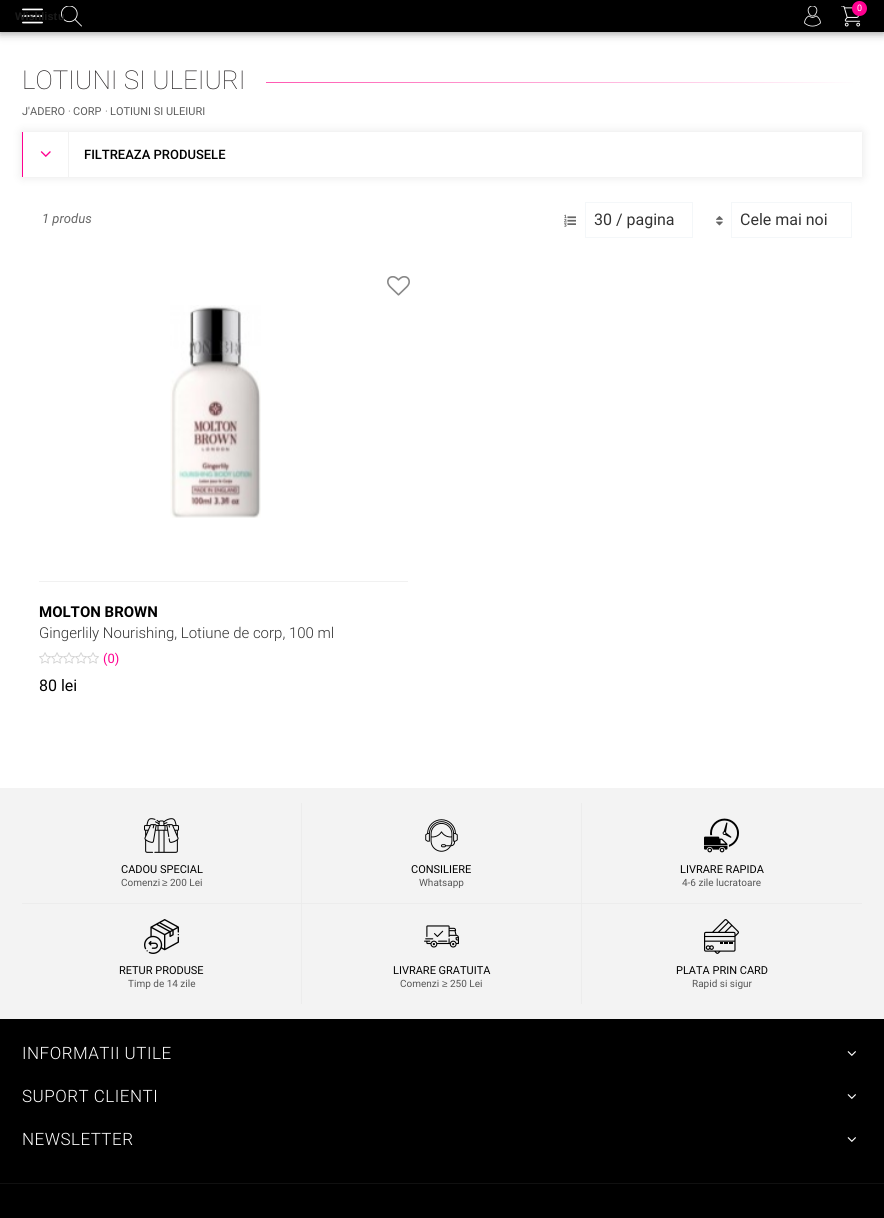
import math
import cairo


def write_spaced(ctx, x, y, s, letter, word):
	ctx.move_to(x, y)
	for ch in s:
		ctx.show_text(ch)
		ctx.rel_move_to(letter + word * (ch == ' '), 0)

def round_path(ctx, x, y, w, h, r):
	ctx.new_sub_path()
	for i, (u, v) in enumerate([(x + w - r, y + h - r), (x + r, y + h - r), (x + r, y + r), (x + w - r, y + r)]):
		ctx.arc(u, v, r, i * math.pi / 2, (i + 1) * math.pi / 2)
	ctx.close_path()

def blur_box(ctx, x, y, w, h, r, blur, alpha):
	ctx.push_group_with_content(cairo.CONTENT_ALPHA)
	ctx.set_operator(cairo.OPERATOR_SOURCE)
	for i in range(15, -16, -2):
		e = blur * i / 6
		if min(w, h) + 2 * e > 0:
			ctx.set_source_rgba(0, 0, 0, alpha * math.erfc((i - 1) / 8.5) / 2)
			round_path(ctx, x - e, y - e, w + 2 * e, h + 2 * e, max(0, min(r + e + blur * .6, min(w, h) / 2 + e)))
			ctx.fill()
	ctx.mask(ctx.pop_group())

def paste(ctx, path, x, y, w, h):
	ctx.save()
	ctx.set_source_surface(cairo.ImageSurface.create_from_png(path), x, y)
	ctx.rectangle(x, y, w, h)
	ctx.fill()
	ctx.restore()

def draw(ctx):
	ctx.set_source_rgb(1, 1, 1)
	ctx.paint()
	ctx.set_source_rgb(0, 0, 0)
	blur_box(ctx, 0, 0, 884, 32, 0, 5, 0.5)
	ctx.set_source_rgb(0, 0, 0)
	ctx.rectangle(0, 0, 884, 32)
	ctx.fill()
	paste(ctx, 'media/1.png', 22, 8, 21, 16)
	paste(ctx, 'media/2.png', 61, 6, 21, 21)
	paste(ctx, 'media/3.png', 804, 6, 17, 21)
	paste(ctx, 'media/4.png', 841, 6, 20, 21)
	ctx.set_source_rgb(1, 0, 0.565)
	ctx.arc(859.5, 8.5, 7.5, 0, 2 * math.pi)
	ctx.fill()
	ctx.select_font_face('Roboto')
	ctx.set_font_size(9)
	ctx.set_source_rgb(1, 1, 1)
	ctx.move_to(857, 11)
	ctx.show_text('0')
	ctx.select_font_face('Roboto Thin')
	ctx.set_font_size(26)
	ctx.set_source_rgb(0.137, 0.122, 0.125)
	ctx.move_to(22, 89)
	ctx.show_text('LOTIUNI SI ULEIURI')
	gradient = cairo.LinearGradient(22, 83, 862, 82)
	gradient.add_color_stop_rgba(0, 1, 0.078, 0.576, 1)
	gradient.add_color_stop_rgba(1, 1, 1, 1, 1)
	ctx.set_source(gradient)
	ctx.rectangle(266, 82, 587, 1)
	ctx.fill()
	ctx.select_font_face('Roboto')
	ctx.set_font_size(11)
	ctx.set_source_rgb(0.361, 0.361, 0.361)
	ctx.move_to(22, 115)
	ctx.show_text('J\'ADERO')
	ctx.set_source_rgb(0.522, 0.522, 0.522)
	ctx.move_to(68, 115)
	ctx.show_text('·')
	ctx.set_source_rgb(0.361, 0.361, 0.361)
	ctx.move_to(73, 115)
	ctx.show_text('CORP')
	ctx.set_source_rgb(0.522, 0.522, 0.522)
	ctx.move_to(105, 115)
	ctx.show_text('·')
	ctx.set_source_rgb(0.361, 0.361, 0.361)
	ctx.move_to(110, 115)
	ctx.show_text('LOTIUNI SI ULEIURI')
	ctx.save()
	ctx.set_fill_rule(cairo.FILL_RULE_EVEN_ODD)
	ctx.new_path()
	ctx.move_to(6, 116)
	ctx.line_to(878, 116)
	ctx.line_to(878, 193)
	ctx.line_to(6, 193)
	ctx.close_path()
	ctx.move_to(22, 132)
	ctx.line_to(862, 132)
	ctx.line_to(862, 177)
	ctx.line_to(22, 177)
	ctx.close_path()
	ctx.clip()
	ctx.set_source_rgb(0, 0, 0)
	blur_box(ctx, 22, 132, 840, 45, 0, 5, 0.1)
	ctx.restore()
	ctx.set_source_rgb(0.949, 0.949, 0.949)
	ctx.rectangle(68, 132, 1, 45)
	ctx.fill()
	ctx.set_source_rgb(1, 0, 0.565)
	ctx.rectangle(22, 132, 1, 45)
	ctx.fill()
	paste(ctx, 'media/5.png', 40, 151, 11, 6)
	ctx.select_font_face('Roboto Medium')
	ctx.set_font_size(13)
	ctx.set_source_rgb(0, 0, 0)
	ctx.move_to(84, 159)
	ctx.show_text('FILTREAZA PRODUSELE')
	ctx.select_font_face('Roboto', cairo.FONT_SLANT_ITALIC)
	ctx.set_source_rgb(0.4, 0.4, 0.4)
	ctx.move_to(42, 223)
	ctx.show_text('1 produs')
	paste(ctx, 'media/6.png', 564, 214, 12, 13)
	ctx.rectangle(585.5, 202.5, 107, 35)
	ctx.set_source_rgb(0.957, 0.965, 0.976)
	ctx.set_line_width(1)
	ctx.stroke()
	ctx.select_font_face('Roboto')
	ctx.set_font_size(16)
	ctx.set_source_rgb(0.2, 0.2, 0.2)
	ctx.move_to(594, 225)
	ctx.show_text('30 / pagina')
	paste(ctx, 'media/7.png', 716, 216, 7, 10)
	ctx.rectangle(731.5, 202.5, 120, 35)
	ctx.set_source_rgb(0.957, 0.965, 0.976)
	ctx.stroke()
	ctx.set_source_rgb(0.2, 0.2, 0.2)
	ctx.move_to(740, 225)
	ctx.show_text('Cele mai noi')
	paste(ctx, 'media/8.png', 387, 276, 23, 20)
	paste(ctx, 'media/9.png', 170, 305, 91, 213)
	ctx.set_source_rgb(0.945, 0.945, 0.945)
	ctx.rectangle(39, 581, 369, 1)
	ctx.fill()
	ctx.select_font_face('Roboto', cairo.FONT_SLANT_NORMAL, cairo.FONT_WEIGHT_BOLD)
	ctx.set_font_size(15)
	ctx.set_source_rgb(0, 0, 0)
	ctx.move_to(39, 617)
	ctx.show_text('MOLTON BROWN')
	ctx.select_font_face('Roboto Light')
	ctx.set_source_rgb(0.2, 0.2, 0.2)
	ctx.move_to(39, 638)
	ctx.show_text('Gingerlily Nourishing, Lotiune de corp, 100 ml')
	paste(ctx, 'media/10.png', 39, 652, 12, 12)
	paste(ctx, 'media/10.png', 51, 652, 12, 12)
	paste(ctx, 'media/10.png', 63, 652, 12, 12)
	paste(ctx, 'media/10.png', 75, 652, 12, 12)
	paste(ctx, 'media/10.png', 87, 652, 12, 12)
	ctx.select_font_face('Roboto')
	ctx.set_font_size(13)
	ctx.set_source_rgb(1, 0, 0.565)
	ctx.move_to(103, 663)
	ctx.show_text('(0)')
	ctx.set_font_size(16)
	ctx.set_source_rgb(0, 0, 0)
	ctx.move_to(39, 691)
	ctx.show_text('80 lei')
	ctx.set_source_rgb(0.953, 0.953, 0.953)
	ctx.rectangle(0, 788, 884, 231)
	ctx.fill()
	ctx.set_source_rgb(0.925, 0.925, 0.925)
	ctx.new_path()
	ctx.move_to(302, 803)
	ctx.line_to(302, 904)
	ctx.line_to(301, 903)
	ctx.line_to(301, 803)
	ctx.close_path()
	ctx.fill()
	ctx.set_source_rgba(0, 0, 0, 0.03)
	ctx.new_path()
	ctx.move_to(302, 904)
	ctx.line_to(22, 904)
	ctx.line_to(22, 903)
	ctx.line_to(301, 903)
	ctx.close_path()
	ctx.fill()
	paste(ctx, 'media/11.png', 144, 818, 35, 35)
	ctx.set_font_size(11)
	ctx.set_source_rgb(0, 0, 0)
	ctx.move_to(121, 873)
	ctx.show_text('CADOU SPECIAL')
	ctx.set_font_size(10)
	ctx.set_source_rgb(0.333, 0.333, 0.333)
	ctx.move_to(121, 886)
	ctx.show_text('Comenzi')
	ctx.select_font_face('Liberation Sans')
	ctx.move_to(162, 886)
	ctx.show_text('≥')
	ctx.select_font_face('Roboto')
	ctx.move_to(170, 886)
	ctx.show_text('200 Lei')
	ctx.set_source_rgb(0.925, 0.925, 0.925)
	ctx.new_path()
	ctx.move_to(582, 803)
	ctx.line_to(582, 904)
	ctx.line_to(581, 903)
	ctx.line_to(581, 803)
	ctx.close_path()
	ctx.fill()
	ctx.set_source_rgba(0, 0, 0, 0.03)
	ctx.new_path()
	ctx.move_to(582, 904)
	ctx.line_to(302, 904)
	ctx.line_to(302, 903)
	ctx.line_to(581, 903)
	ctx.close_path()
	ctx.fill()
	paste(ctx, 'media/12.png', 425, 819, 33, 33)
	ctx.set_font_size(11)
	ctx.set_source_rgb(0, 0, 0)
	ctx.move_to(411, 873)
	ctx.show_text('CONSILIERE')
	ctx.set_font_size(10)
	ctx.set_source_rgb(0.333, 0.333, 0.333)
	ctx.move_to(419, 886)
	ctx.show_text('Whatsapp')
	ctx.set_source_rgb(0.925, 0.925, 0.925)
	ctx.rectangle(582, 903, 280, 1)
	ctx.fill()
	paste(ctx, 'media/13.png', 704, 818, 35, 35)
	ctx.set_font_size(11)
	ctx.set_source_rgb(0, 0, 0)
	ctx.move_to(680, 873)
	ctx.show_text('LIVRARE RAPIDA')
	ctx.set_font_size(10)
	ctx.set_source_rgb(0.333, 0.333, 0.333)
	ctx.move_to(682, 886)
	ctx.show_text('4-6 zile lucratoare')
	ctx.set_source_rgb(0.925, 0.925, 0.925)
	ctx.rectangle(301, 904, 1, 100)
	ctx.fill()
	paste(ctx, 'media/14.png', 144, 919, 35, 35)
	ctx.set_font_size(11)
	ctx.set_source_rgb(0, 0, 0)
	ctx.move_to(119, 974)
	ctx.show_text('RETUR PRODUSE')
	ctx.set_font_size(10)
	ctx.set_source_rgb(0.333, 0.333, 0.333)
	ctx.move_to(128, 987)
	ctx.show_text('Timp de 14 zile')
	ctx.set_source_rgb(0.925, 0.925, 0.925)
	ctx.rectangle(581, 904, 1, 100)
	ctx.fill()
	paste(ctx, 'media/15.png', 424, 925, 35, 23)
	ctx.set_font_size(11)
	ctx.set_source_rgb(0, 0, 0)
	ctx.move_to(393, 974)
	ctx.show_text('LIVRARE GRATUITA')
	ctx.set_font_size(10)
	ctx.set_source_rgb(0.333, 0.333, 0.333)
	ctx.move_to(400, 987)
	ctx.show_text('Comenzi')
	ctx.select_font_face('Liberation Sans')
	ctx.move_to(442, 987)
	ctx.show_text('≥')
	ctx.select_font_face('Roboto')
	ctx.move_to(450, 987)
	ctx.show_text('250 Lei')
	paste(ctx, 'media/16.png', 704, 919, 35, 35)
	ctx.set_font_size(11)
	ctx.set_source_rgb(0, 0, 0)
	ctx.move_to(676, 974)
	ctx.show_text('PLATA PRIN CARD')
	ctx.set_font_size(10)
	ctx.set_source_rgb(0.333, 0.333, 0.333)
	ctx.move_to(692, 987)
	ctx.show_text('Rapid si sigur')
	ctx.set_source_rgb(0, 0, 0)
	ctx.rectangle(0, 1019, 884, 164)
	ctx.fill()
	ctx.set_source_rgb(0.063, 0.063, 0.063)
	ctx.rectangle(0, 1183, 884, 1)
	ctx.fill()
	ctx.select_font_face('Roboto Light')
	ctx.set_font_size(17)
	ctx.set_source_rgb(1, 1, 1)
	write_spaced(ctx, 22, 1059, 'INFORMATII UTILE', 0.5, 0)
	paste(ctx, 'media/17.png', 847, 1051, 9, 5)
	write_spaced(ctx, 22, 1102, 'SUPORT CLIENTI', 0.5, 0)
	paste(ctx, 'media/17.png', 847, 1094, 9, 5)
	write_spaced(ctx, 22, 1145, 'NEWSLETTER', 0.5, 0)
	paste(ctx, 'media/17.png', 847, 1137, 9, 5)
	ctx.set_source_rgb(0, 0, 0)
	ctx.rectangle(0, 1184, 884, 34)
	ctx.fill()
	ctx.select_font_face('Liberation Sans', cairo.FONT_SLANT_NORMAL, cairo.FONT_WEIGHT_BOLD)
	ctx.set_font_size(11)
	ctx.set_source_rgb(0.106, 0.106, 0.106)
	ctx.move_to(15, 20)
	ctx.show_text('Wishlist')
	ctx.move_to(58, 20)
	ctx.show_text('u')


surface = cairo.ImageSurface(cairo.FORMAT_RGB24, 884, 1218)
ctx = cairo.Context(surface)
options = cairo.FontOptions()
options.set_hint_metrics(cairo.HINT_METRICS_OFF)
options.set_hint_style(cairo.HINT_STYLE_NONE)
ctx.set_font_options(options)
ctx.set_miter_limit(4)
draw(ctx)
surface.write_to_png('image.png')
